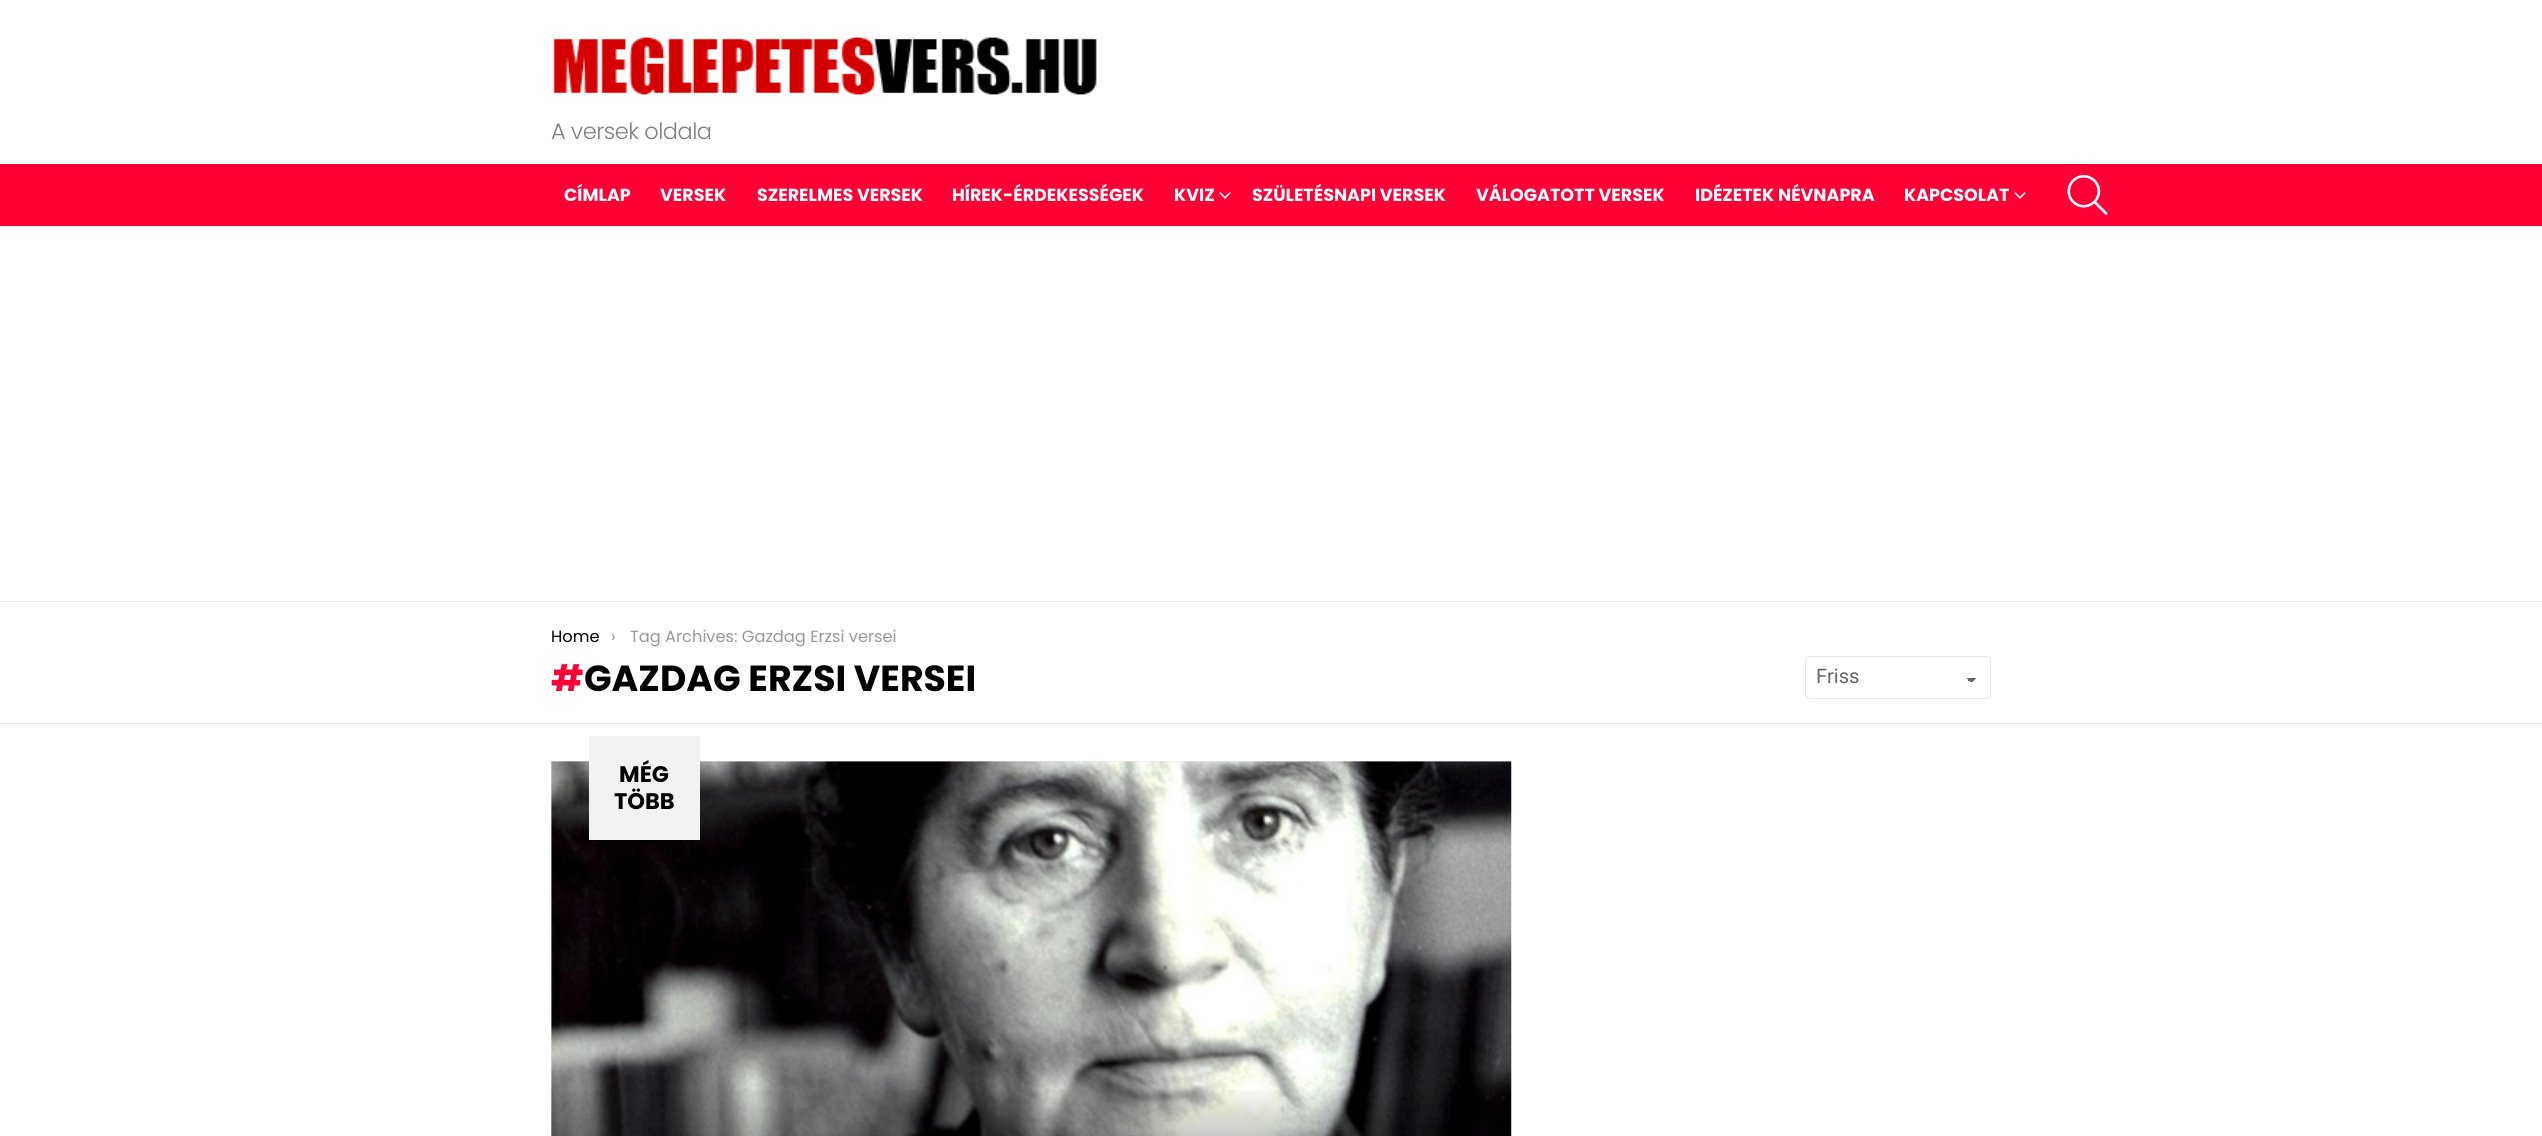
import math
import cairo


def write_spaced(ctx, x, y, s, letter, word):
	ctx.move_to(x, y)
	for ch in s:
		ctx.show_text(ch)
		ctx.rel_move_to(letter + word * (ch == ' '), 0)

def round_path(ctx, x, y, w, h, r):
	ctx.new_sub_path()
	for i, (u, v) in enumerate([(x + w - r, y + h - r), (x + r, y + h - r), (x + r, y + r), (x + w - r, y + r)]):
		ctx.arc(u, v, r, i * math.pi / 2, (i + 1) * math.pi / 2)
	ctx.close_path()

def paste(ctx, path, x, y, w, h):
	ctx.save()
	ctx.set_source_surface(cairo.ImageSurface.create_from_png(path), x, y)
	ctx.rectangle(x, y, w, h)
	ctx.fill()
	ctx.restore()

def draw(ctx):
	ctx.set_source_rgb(1, 1, 1)
	ctx.paint()
	paste(ctx, 'media/1.png', 552, 37, 545, 58)
	ctx.select_font_face('Poppins Light')
	ctx.set_font_size(22.5)
	ctx.set_source_rgb(0.502, 0.502, 0.502)
	write_spaced(ctx, 551, 139, 'A versek oldala', -0.5, 0)
	ctx.set_source_rgb(1, 0, 0.212)
	ctx.rectangle(0, 164, 2542, 62)
	ctx.fill()
	ctx.select_font_face('Poppins', cairo.FONT_SLANT_NORMAL, cairo.FONT_WEIGHT_BOLD)
	ctx.set_font_size(17.5)
	ctx.set_source_rgb(1, 1, 1)
	for x, y, s in [
		(564, 201, 'CÍMLAP'),
		(660, 201, 'VERSEK'),
		(757, 201, 'SZERELMES VERSEK'),
		(952, 201, 'HÍREK-ÉRDEKESSÉGEK'),
		(1174, 201, 'KVIZ'),
	]:
		ctx.move_to(x, y)
		ctx.show_text(s)
	paste(ctx, 'media/2.png', 1219, 192, 12, 7)
	for x, y, s in [
		(1252, 201, 'SZÜLETÉSNAPI VERSEK'),
		(1476, 201, 'VÁLOGATOTT VERSEK'),
		(1695, 201, 'IDÉZETEK NÉVNAPRA'),
		(1904, 201, 'KAPCSOLAT'),
	]:
		ctx.move_to(x, y)
		ctx.show_text(s)
	paste(ctx, 'media/2.png', 2014, 192, 12, 7)
	paste(ctx, 'media/3.png', 2067, 175, 41, 40)
	ctx.set_source_rgb(0.902, 0.902, 0.902)
	ctx.rectangle(0, 601, 2542, 1)
	ctx.fill()
	ctx.select_font_face('Poppins')
	ctx.set_font_size(16.25)
	ctx.set_source_rgb(0, 0, 0)
	ctx.move_to(551, 642)
	ctx.show_text('Home')
	ctx.set_source_rgb(0.6, 0.6, 0.6)
	ctx.move_to(611, 642)
	ctx.show_text('›')
	ctx.move_to(630, 642)
	ctx.show_text('Tag Archives: Gazdag Erzsi versei')
	ctx.select_font_face('Poppins', cairo.FONT_SLANT_NORMAL, cairo.FONT_WEIGHT_BOLD)
	ctx.set_font_size(36.25)
	ctx.set_source_rgb(1, 0, 0.212)
	ctx.move_to(551, 691)
	ctx.show_text('#')
	ctx.set_source_rgb(0, 0, 0)
	ctx.move_to(584, 691)
	ctx.show_text('GAZDAG ERZSI VERSEI')
	gradient = cairo.LinearGradient(1972, 677, 1977, 683)
	gradient.add_color_stop_rgba(0.5, 0.4, 0.4, 0.4, 1)
	gradient.add_color_stop_rgba(0.5, 1, 1, 1, 1)
	ctx.set_source(gradient)
	ctx.rectangle(1971, 678, 7, 4)
	ctx.fill()
	gradient = cairo.LinearGradient(1965, 683, 1971, 677)
	gradient.add_color_stop_rgba(0.5, 1, 1, 1, 1)
	gradient.add_color_stop_rgba(0.5, 0.4, 0.4, 0.4, 1)
	ctx.set_source(gradient)
	ctx.rectangle(1965, 678, 6, 4)
	ctx.fill()
	round_path(ctx, 1805.5, 656.5, 185, 42, 4.5)
	ctx.set_source_rgb(0.902, 0.902, 0.902)
	ctx.set_line_width(1)
	ctx.stroke()
	ctx.select_font_face('Roboto')
	ctx.set_font_size(20)
	ctx.set_source_rgb(0.4, 0.4, 0.4)
	ctx.move_to(1816, 683)
	ctx.show_text('Friss')
	ctx.set_source_rgb(0.902, 0.902, 0.902)
	ctx.rectangle(0, 723, 2542, 1)
	ctx.fill()
	ctx.rectangle(551, 761, 960, 375)
	ctx.fill()
	paste(ctx, 'media/4.png', 551, 761, 961, 375)
	ctx.set_source_rgb(0.949, 0.949, 0.949)
	ctx.rectangle(589, 736, 111, 104)
	ctx.fill()
	ctx.select_font_face('Poppins', cairo.FONT_SLANT_NORMAL, cairo.FONT_WEIGHT_BOLD)
	ctx.set_font_size(22.5)
	ctx.set_source_rgb(0, 0, 0)
	ctx.move_to(619, 782)
	ctx.show_text('MÉG')
	ctx.move_to(614, 809)
	ctx.show_text('TÖBB')
	gradient = cairo.LinearGradient(1031, 1085, 1031, 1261)
	gradient.add_color_stop_rgba(0, 0, 0, 0, 0)
	gradient.add_color_stop_rgba(1, 0, 0, 0, 0.75)
	ctx.set_source(gradient)
	ctx.rectangle(551, 1090, 960, 46)
	ctx.fill()


surface = cairo.ImageSurface(cairo.FORMAT_RGB24, 2542, 1136)
ctx = cairo.Context(surface)
options = cairo.FontOptions()
options.set_hint_metrics(cairo.HINT_METRICS_OFF)
options.set_hint_style(cairo.HINT_STYLE_NONE)
ctx.set_font_options(options)
ctx.set_miter_limit(4)
draw(ctx)
surface.write_to_png('image.png')
